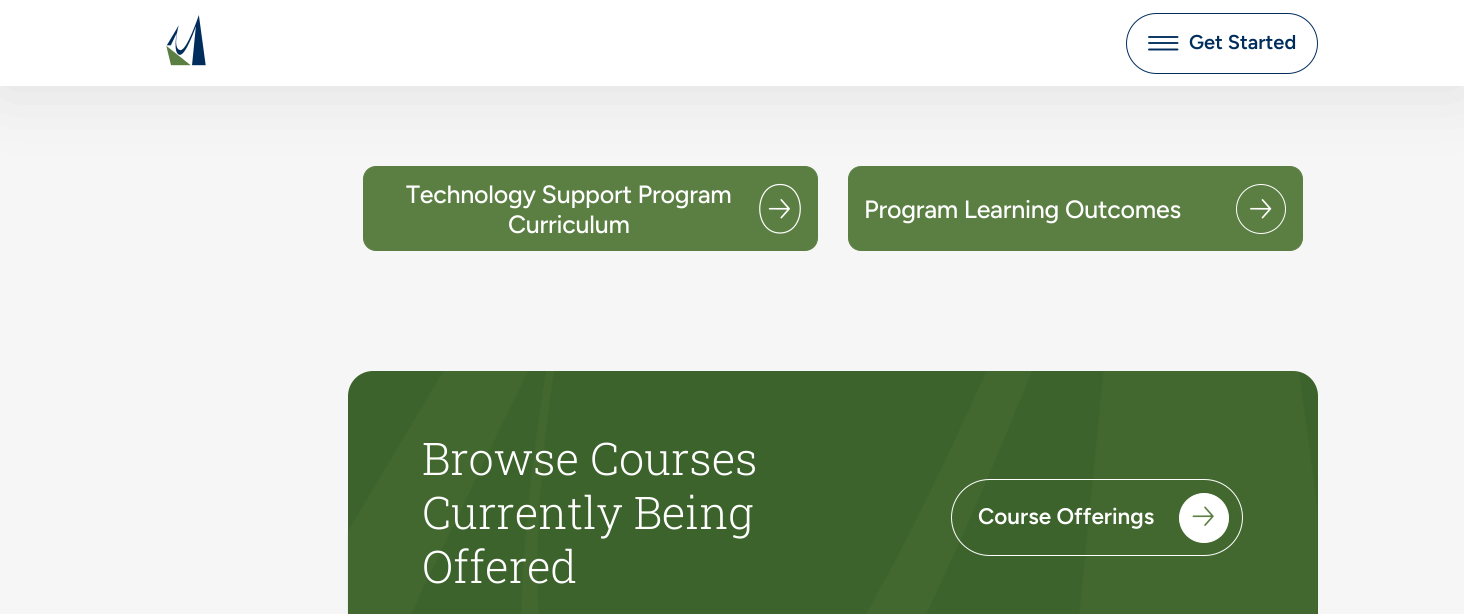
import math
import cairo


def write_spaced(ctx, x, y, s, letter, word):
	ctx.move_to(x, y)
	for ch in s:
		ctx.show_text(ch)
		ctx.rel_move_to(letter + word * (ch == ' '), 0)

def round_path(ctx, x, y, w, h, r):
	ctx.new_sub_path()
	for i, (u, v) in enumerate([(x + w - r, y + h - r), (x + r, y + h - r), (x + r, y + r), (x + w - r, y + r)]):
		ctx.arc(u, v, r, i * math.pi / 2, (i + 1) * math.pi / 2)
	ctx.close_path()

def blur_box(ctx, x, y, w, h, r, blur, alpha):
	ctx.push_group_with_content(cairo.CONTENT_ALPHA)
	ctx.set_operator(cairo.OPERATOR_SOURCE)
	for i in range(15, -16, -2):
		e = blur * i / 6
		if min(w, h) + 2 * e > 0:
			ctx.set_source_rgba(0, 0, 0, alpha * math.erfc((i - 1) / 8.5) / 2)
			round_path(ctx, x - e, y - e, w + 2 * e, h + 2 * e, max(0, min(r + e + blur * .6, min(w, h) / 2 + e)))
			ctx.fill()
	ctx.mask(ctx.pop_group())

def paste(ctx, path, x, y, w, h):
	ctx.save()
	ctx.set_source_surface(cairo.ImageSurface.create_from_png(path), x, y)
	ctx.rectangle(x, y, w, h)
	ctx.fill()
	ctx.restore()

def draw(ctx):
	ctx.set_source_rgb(0.961, 0.961, 0.961)
	ctx.paint()
	ctx.set_source_rgb(0.357, 0.498, 0.263)
	round_path(ctx, 363.5, 166.5, 454, 84, 12.5)
	ctx.fill_preserve()
	ctx.set_line_width(1)
	ctx.stroke()
	ctx.new_path()
	ctx.move_to(780, 184.5)
	ctx.curve_to(807, 184.5, 807, 233, 780, 233)
	ctx.curve_to(753, 233, 753, 184.5, 780, 184.5)
	ctx.close_path()
	ctx.set_source_rgb(1, 1, 1)
	ctx.set_line_width(1.2)
	ctx.stroke()
	paste(ctx, 'media/2.png', 768, 199, 22, 20)
	ctx.set_source_rgb(0.357, 0.498, 0.263)
	round_path(ctx, 848.5, 166.5, 454, 84, 12.5)
	ctx.fill_preserve()
	ctx.set_line_width(1)
	ctx.stroke()
	ctx.arc(1261, 209, 24.5, 0, 2 * math.pi)
	ctx.set_source_rgb(1, 1, 1)
	ctx.stroke()
	paste(ctx, 'media/3.png', 1250, 199, 22, 20)
	ctx.set_source_rgb(0, 0, 0)
	blur_box(ctx, 0, 0, 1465, 86, 0, 37.5, 0.1)
	ctx.set_source_rgb(1, 1, 1)
	ctx.rectangle(0, 0, 1464, 86)
	ctx.fill()
	paste(ctx, 'media/1.png', 166, 15, 40, 51)
	round_path(ctx, 1126.5, 13.5, 191, 60, 30)
	ctx.set_source_rgb(0, 0.176, 0.361)
	ctx.stroke()
	ctx.new_path()
	ctx.move_to(1149, 37)
	ctx.line_to(1177.5, 37)
	ctx.move_to(1149, 49.5)
	ctx.line_to(1177.5, 49.5)
	ctx.move_to(1149, 43)
	ctx.line_to(1177.5, 43)
	ctx.set_line_width(1.9)
	ctx.set_line_cap(cairo.LINE_CAP_ROUND)
	ctx.stroke()
	ctx.select_font_face('Figtree SemiBold')
	ctx.set_font_size(20)
	ctx.move_to(1189, 49)
	ctx.show_text('Get Started')
	ctx.select_font_face('Figtree Medium')
	ctx.set_font_size(25)
	ctx.set_source_rgb(1, 1, 1)
	for x, y, s in [
		(406, 203, 'Technology Support Program'),
		(508, 233, 'Curriculum'),
		(864, 218, 'Program Learning Outcomes'),
	]:
		write_spaced(ctx, x, y, s, -0.25, 0)
	ctx.set_source_rgb(0.235, 0.388, 0.169)
	round_path(ctx, 348, 371, 970, 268, 25)
	ctx.fill()
	paste(ctx, 'media/4.png', 347, 371, 970, 243)
	ctx.select_font_face('Roboto Slab Light')
	ctx.set_font_size(45)
	ctx.set_source_rgb(1, 1, 1)
	for x, y, s in [
		(422, 475, 'Browse Courses'),
		(422, 529, 'Currently Being'),
		(422, 583, 'Offered'),
	]:
		ctx.move_to(x, y)
		ctx.show_text(s)
	round_path(ctx, 951.5, 479.5, 291, 76, 38)
	ctx.set_line_width(1)
	ctx.set_line_cap(cairo.LINE_CAP_BUTT)
	ctx.stroke()
	ctx.select_font_face('Figtree SemiBold')
	ctx.set_font_size(22.5)
	ctx.move_to(978, 524)
	ctx.show_text('Course Offerings')
	ctx.new_path()
	ctx.arc(1204, 518, 24.5, 0, 2 * math.pi)
	ctx.fill_preserve()
	ctx.stroke()
	paste(ctx, 'media/5.png', 1192, 506, 22, 20)


surface = cairo.ImageSurface(cairo.FORMAT_RGB24, 1464, 614)
ctx = cairo.Context(surface)
options = cairo.FontOptions()
options.set_hint_metrics(cairo.HINT_METRICS_OFF)
options.set_hint_style(cairo.HINT_STYLE_NONE)
ctx.set_font_options(options)
ctx.set_miter_limit(4)
draw(ctx)
surface.write_to_png('image.png')
